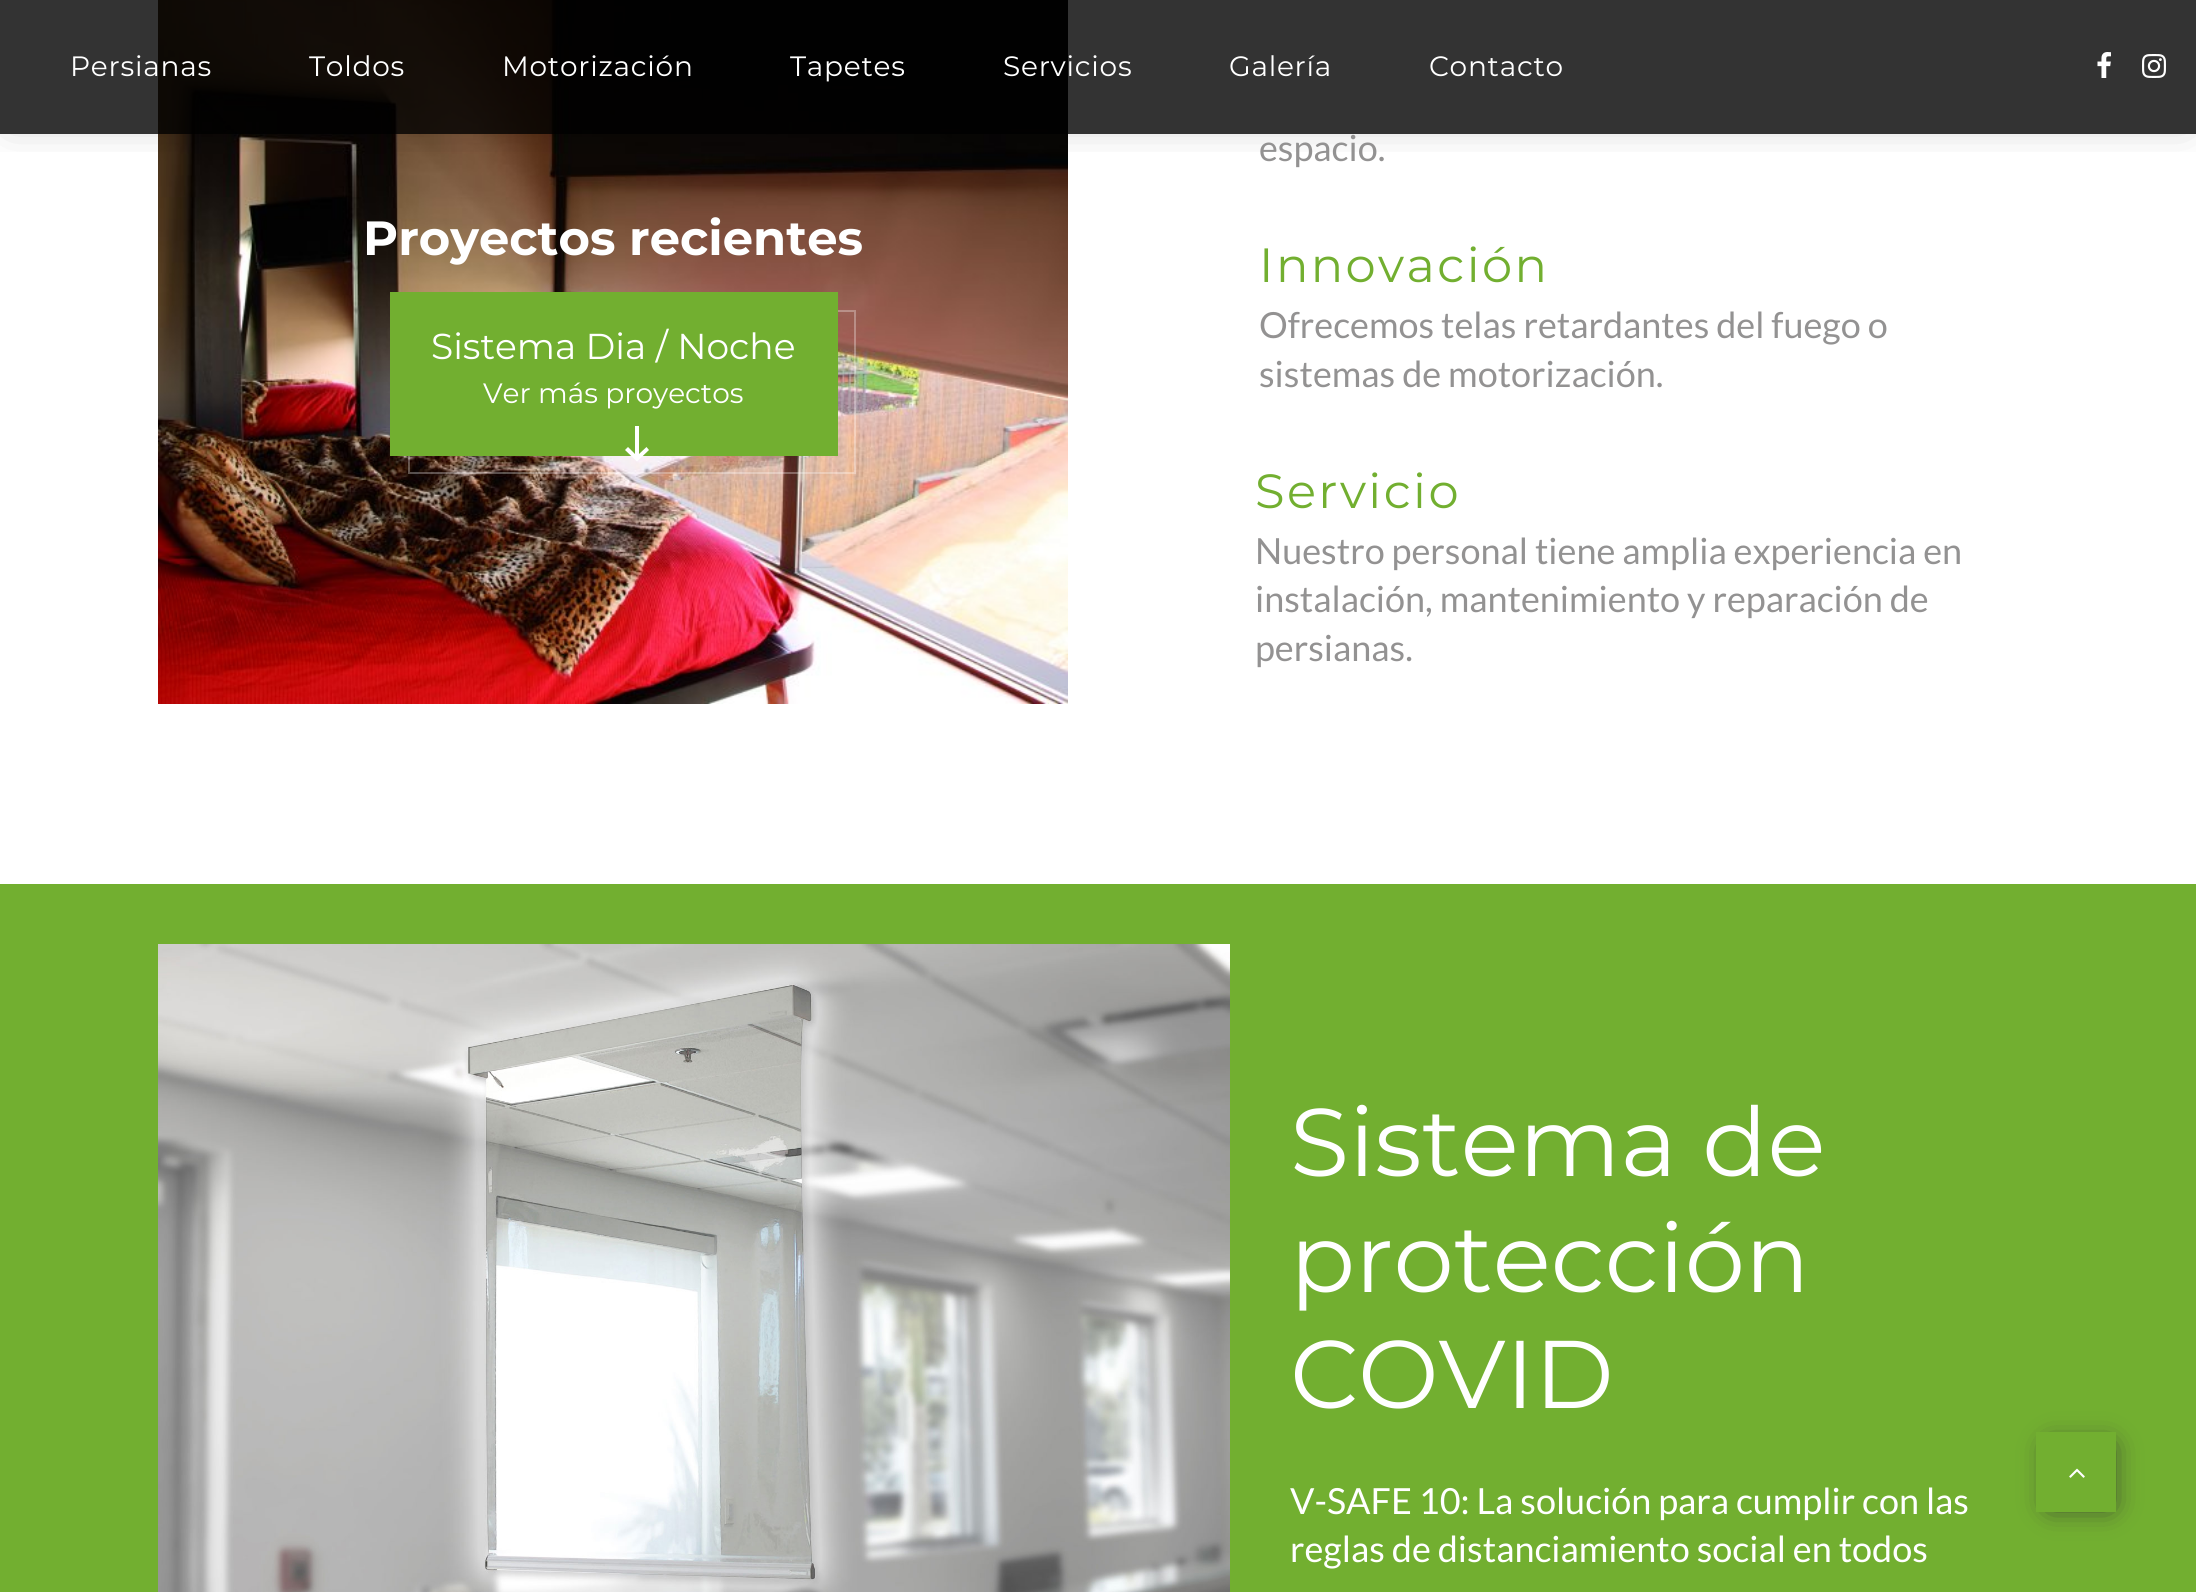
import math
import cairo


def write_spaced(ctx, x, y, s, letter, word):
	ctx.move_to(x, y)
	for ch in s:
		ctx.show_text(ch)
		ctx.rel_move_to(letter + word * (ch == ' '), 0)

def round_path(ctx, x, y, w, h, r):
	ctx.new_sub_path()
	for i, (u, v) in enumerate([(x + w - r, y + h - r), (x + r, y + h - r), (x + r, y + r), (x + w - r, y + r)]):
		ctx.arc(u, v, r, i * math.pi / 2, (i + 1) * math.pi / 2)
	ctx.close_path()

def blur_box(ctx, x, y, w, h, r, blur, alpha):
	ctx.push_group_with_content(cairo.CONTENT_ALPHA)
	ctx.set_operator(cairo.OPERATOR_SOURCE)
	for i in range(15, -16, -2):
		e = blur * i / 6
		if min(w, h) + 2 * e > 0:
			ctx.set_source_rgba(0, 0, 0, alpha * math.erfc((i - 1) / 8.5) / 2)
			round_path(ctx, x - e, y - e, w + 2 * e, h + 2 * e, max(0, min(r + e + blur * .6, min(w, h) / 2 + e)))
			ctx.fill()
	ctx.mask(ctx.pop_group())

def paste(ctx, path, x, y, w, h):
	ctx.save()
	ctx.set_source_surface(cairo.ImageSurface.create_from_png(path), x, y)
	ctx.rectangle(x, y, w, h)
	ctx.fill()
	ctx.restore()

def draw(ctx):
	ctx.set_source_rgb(1, 1, 1)
	ctx.paint()
	paste(ctx, 'media/3.png', 158, 0, 910, 704)
	ctx.save()
	ctx.rectangle(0, 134, 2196, 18)
	ctx.clip()
	ctx.set_source_rgb(0, 0, 0)
	blur_box(ctx, 8, 8, 2180, 118, 0, 22, 0.17)
	ctx.restore()
	ctx.set_source_rgba(0, 0, 0, 0.8)
	ctx.rectangle(0, 0, 2196, 134)
	ctx.fill()
	ctx.select_font_face('Montserrat')
	ctx.set_font_size(28)
	ctx.set_source_rgb(1, 1, 1)
	for x, y, s in [
		(70, 76, 'Persianas'),
		(309, 76, 'Toldos'),
		(502, 76, 'Motorización'),
		(790, 76, 'Tapetes'),
		(1003, 76, 'Servicios'),
		(1229, 76, 'Galería'),
		(1429, 76, 'Contacto'),
	]:
		write_spaced(ctx, x, y, s, 0.75, 0)
	paste(ctx, 'media/1.png', 2097, 52, 14, 26)
	paste(ctx, 'media/2.png', 2142, 54, 24, 24)
	ctx.select_font_face('Montserrat', cairo.FONT_SLANT_NORMAL, cairo.FONT_WEIGHT_BOLD)
	ctx.set_font_size(48)
	ctx.move_to(363, 255)
	ctx.show_text('Proyectos recientes')
	ctx.rectangle(409, 311, 446, 162)
	ctx.set_source_rgba(1, 1, 1, 0.3)
	ctx.stroke()
	ctx.set_source_rgb(0.447, 0.686, 0.188)
	ctx.rectangle(390, 292, 448, 164)
	ctx.fill()
	ctx.select_font_face('Montserrat')
	ctx.set_font_size(36)
	ctx.set_source_rgb(1, 1, 1)
	ctx.move_to(431, 359)
	ctx.show_text('Sistema Dia / Noche')
	ctx.set_font_size(28)
	ctx.move_to(483, 403)
	ctx.show_text('Ver más proyectos')
	ctx.new_path()
	ctx.move_to(635, 426)
	ctx.line_to(639, 426)
	ctx.line_to(639, 454)
	ctx.line_to(646.5, 447)
	ctx.line_to(649, 450)
	ctx.line_to(637, 461.5)
	ctx.line_to(625, 450)
	ctx.line_to(628, 447)
	ctx.line_to(635, 454)
	ctx.close_path()
	ctx.fill()
	ctx.select_font_face('Lato')
	ctx.set_font_size(36)
	ctx.set_source_rgb(0.576, 0.573, 0.573)
	ctx.move_to(1259, 161)
	ctx.show_text('espacio.')
	ctx.select_font_face('Montserrat')
	ctx.set_font_size(48)
	ctx.set_source_rgb(0.447, 0.686, 0.188)
	write_spaced(ctx, 1259, 282, 'Innovación', 2.4, 0)
	ctx.select_font_face('Lato')
	ctx.set_font_size(36)
	ctx.set_source_rgb(0.576, 0.573, 0.573)
	ctx.move_to(1259, 338)
	ctx.show_text('Ofrecemos telas retardantes del fuego o')
	ctx.move_to(1259, 387)
	ctx.show_text('sistemas de motorización.')
	ctx.select_font_face('Montserrat')
	ctx.set_font_size(48)
	ctx.set_source_rgb(0.447, 0.686, 0.188)
	write_spaced(ctx, 1255, 508, 'Servicio', 2.4, 0)
	ctx.select_font_face('Lato')
	ctx.set_font_size(36)
	ctx.set_source_rgb(0.576, 0.573, 0.573)
	for x, y, s in [
		(1255, 564, 'Nuestro personal tiene amplia experiencia en'),
		(1255, 612, 'instalación, mantenimiento y reparación de'),
		(1255, 661, 'persianas.'),
	]:
		ctx.move_to(x, y)
		ctx.show_text(s)
	ctx.set_source_rgb(0.447, 0.686, 0.188)
	ctx.rectangle(0, 884, 2196, 708)
	ctx.fill()
	paste(ctx, 'media/4.png', 158, 944, 1072, 648)
	ctx.select_font_face('Montserrat')
	ctx.set_font_size(96)
	ctx.set_source_rgb(1, 1, 1)
	for x, y, s in [
		(1290, 1176, 'Sistema de'),
		(1290, 1292, 'protección'),
		(1290, 1408, 'COVID'),
	]:
		ctx.move_to(x, y)
		ctx.show_text(s)
	ctx.select_font_face('Lato')
	ctx.set_font_size(36)
	ctx.move_to(1290, 1514)
	ctx.show_text('V-SAFE 10: La solución para cumplir con las')
	ctx.move_to(1290, 1562)
	ctx.show_text('reglas de distanciamiento social en todos')
	ctx.save()
	ctx.set_fill_rule(cairo.FILL_RULE_EVEN_ODD)
	ctx.new_path()
	ctx.move_to(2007, 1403)
	ctx.line_to(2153, 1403)
	ctx.line_to(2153, 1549)
	ctx.line_to(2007, 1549)
	ctx.close_path()
	ctx.move_to(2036, 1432)
	ctx.line_to(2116, 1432)
	ctx.line_to(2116, 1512)
	ctx.line_to(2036, 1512)
	ctx.close_path()
	ctx.clip()
	ctx.set_source_rgb(0.2, 0.2, 0.2)
	blur_box(ctx, 2050, 1446, 60, 60, 0, 14, 1)
	ctx.restore()
	paste(ctx, 'media/5.png', 2069, 1468, 16, 10)


surface = cairo.ImageSurface(cairo.FORMAT_RGB24, 2196, 1592)
ctx = cairo.Context(surface)
options = cairo.FontOptions()
options.set_hint_metrics(cairo.HINT_METRICS_OFF)
options.set_hint_style(cairo.HINT_STYLE_NONE)
ctx.set_font_options(options)
ctx.set_miter_limit(4)
draw(ctx)
surface.write_to_png('image.png')
